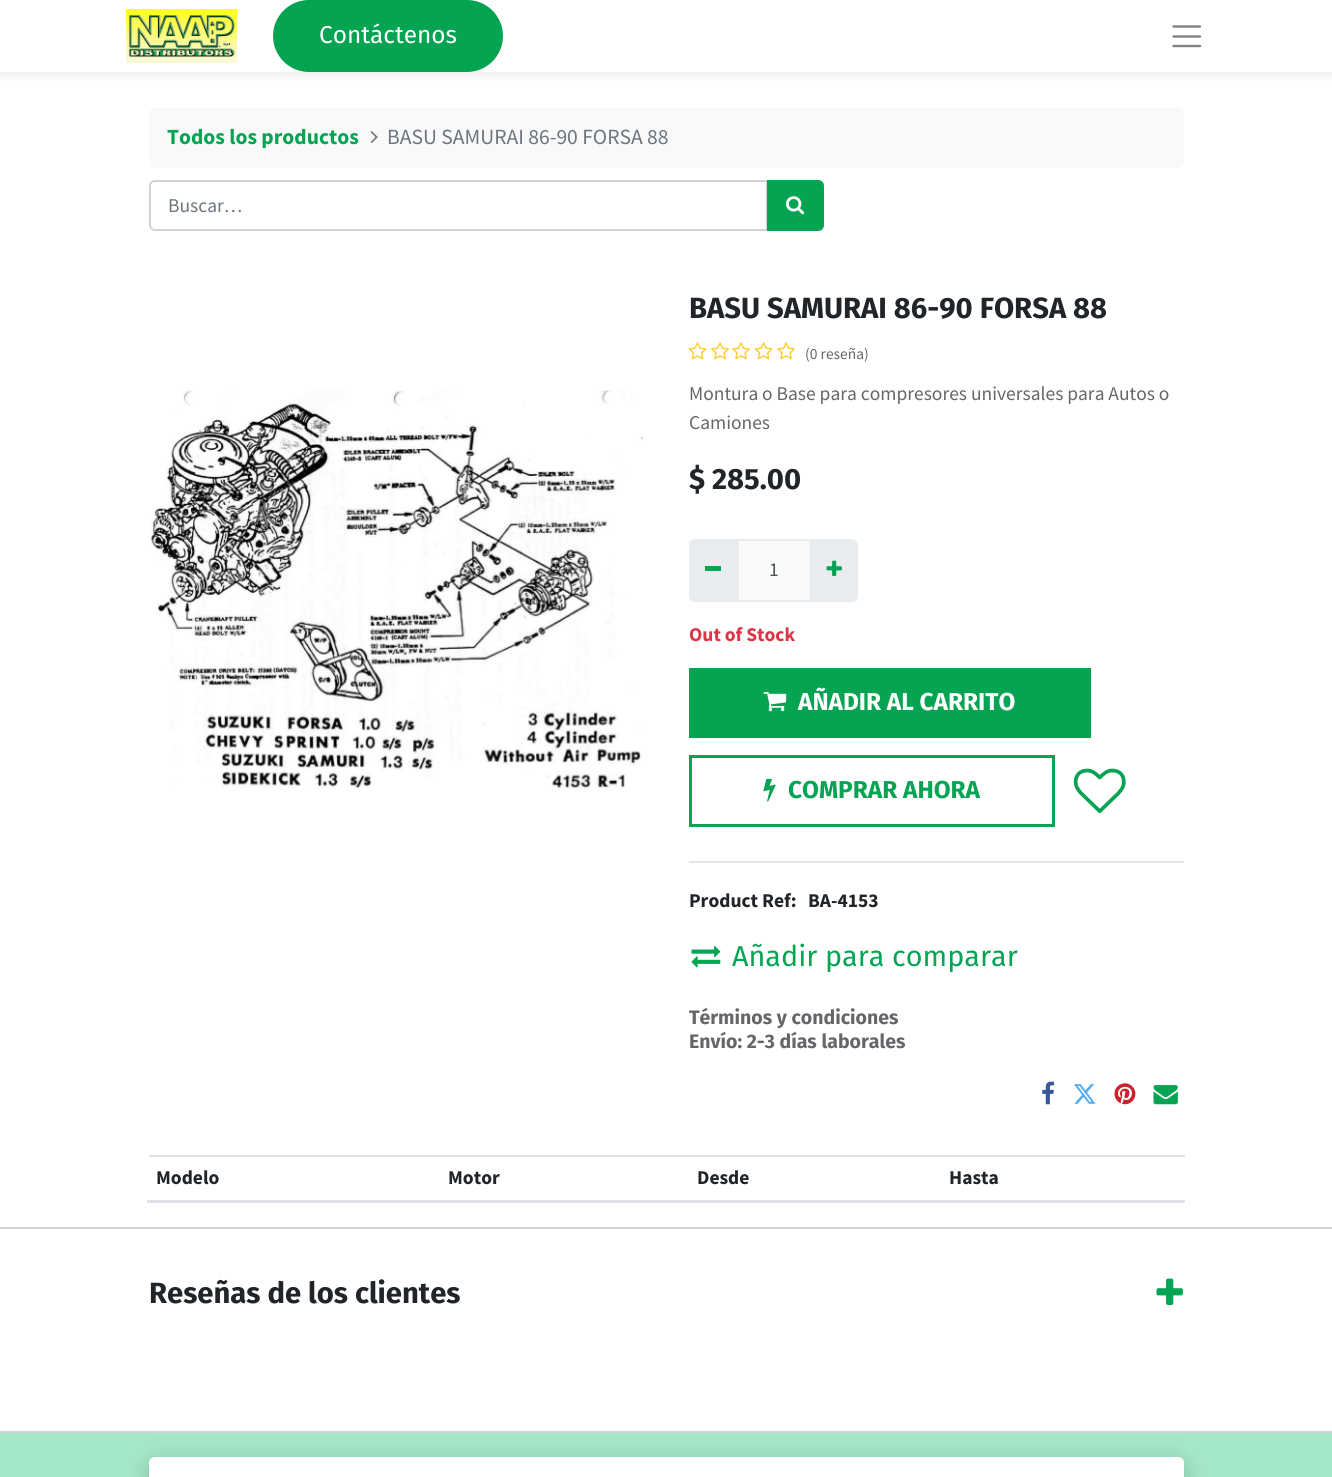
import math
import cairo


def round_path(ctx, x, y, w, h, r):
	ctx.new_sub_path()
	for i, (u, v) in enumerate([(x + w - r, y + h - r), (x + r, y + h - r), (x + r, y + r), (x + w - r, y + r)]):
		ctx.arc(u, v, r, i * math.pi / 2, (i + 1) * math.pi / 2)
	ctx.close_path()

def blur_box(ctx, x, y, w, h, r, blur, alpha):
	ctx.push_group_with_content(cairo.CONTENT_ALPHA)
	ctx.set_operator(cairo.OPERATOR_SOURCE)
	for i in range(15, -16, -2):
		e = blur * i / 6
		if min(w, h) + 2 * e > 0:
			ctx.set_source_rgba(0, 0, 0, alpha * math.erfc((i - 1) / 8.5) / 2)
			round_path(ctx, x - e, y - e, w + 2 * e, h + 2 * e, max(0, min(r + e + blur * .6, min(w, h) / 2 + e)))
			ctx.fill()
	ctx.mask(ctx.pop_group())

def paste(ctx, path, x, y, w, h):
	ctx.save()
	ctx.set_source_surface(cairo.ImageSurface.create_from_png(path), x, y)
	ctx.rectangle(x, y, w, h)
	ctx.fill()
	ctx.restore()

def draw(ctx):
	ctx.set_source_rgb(1, 1, 1)
	ctx.paint()
	ctx.save()
	ctx.rectangle(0, 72, 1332, 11)
	ctx.clip()
	ctx.set_source_rgb(0.937, 0.941, 0.941)
	blur_box(ctx, 0, 5, 1332, 72, 0, 3, 1)
	ctx.restore()
	paste(ctx, 'media/1.png', 126, 9, 111, 54)
	ctx.set_source_rgb(0.02, 0.643, 0.325)
	round_path(ctx, 274.5, 1.5, 227, 69, 34.5)
	ctx.fill_preserve()
	ctx.set_line_width(3)
	ctx.stroke()
	ctx.select_font_face('Fira Sans')
	ctx.set_font_size(24.4)
	ctx.set_source_rgb(1, 1, 1)
	ctx.move_to(319, 43)
	ctx.show_text('Contáctenos')
	ctx.new_path()
	ctx.move_to(1173.5, 26.5)
	ctx.line_to(1200, 26.5)
	ctx.move_to(1173.5, 36.5)
	ctx.line_to(1200, 36.5)
	ctx.move_to(1173.5, 46)
	ctx.line_to(1200, 46)
	ctx.set_source_rgb(0.502, 0.502, 0.502)
	ctx.set_line_width(2.4)
	ctx.set_line_cap(cairo.LINE_CAP_ROUND)
	ctx.stroke()
	ctx.set_source_rgb(0.973, 0.976, 0.98)
	round_path(ctx, 149, 108, 1035, 60, 6)
	ctx.fill()
	ctx.select_font_face('Source Sans Pro', cairo.FONT_SLANT_NORMAL, cairo.FONT_WEIGHT_BOLD)
	ctx.set_font_size(21.6)
	ctx.set_source_rgb(0.02, 0.643, 0.325)
	ctx.move_to(167, 144)
	ctx.show_text('Todos los productos')
	paste(ctx, 'media/2.png', 370, 131, 8, 12)
	ctx.select_font_face('Source Sans Pro')
	ctx.set_source_rgb(0.424, 0.459, 0.49)
	ctx.move_to(387, 144)
	ctx.show_text('BASU SAMURAI 86-90 FORSA 88')
	ctx.new_path()
	ctx.move_to(155, 181)
	ctx.line_to(767, 181)
	ctx.line_to(767, 230)
	ctx.line_to(155, 230)
	ctx.curve_to(152, 230, 150, 228, 150, 225)
	ctx.line_to(150, 186)
	ctx.curve_to(150, 183, 152, 181, 155, 181)
	ctx.close_path()
	ctx.set_source_rgb(0.808, 0.831, 0.855)
	ctx.set_line_width(2)
	ctx.set_line_cap(cairo.LINE_CAP_BUTT)
	ctx.stroke()
	ctx.set_font_size(19.5)
	ctx.set_source_rgb(0.424, 0.459, 0.49)
	ctx.move_to(168, 212)
	ctx.show_text('Buscar…')
	ctx.set_source_rgb(0.02, 0.643, 0.325)
	ctx.new_path()
	ctx.move_to(768, 181)
	ctx.line_to(818, 181)
	ctx.curve_to(821, 181, 823, 183, 823, 186)
	ctx.line_to(823, 225)
	ctx.curve_to(823, 228, 821, 230, 818, 230)
	ctx.line_to(768, 230)
	ctx.close_path()
	ctx.fill_preserve()
	ctx.stroke()
	paste(ctx, 'media/3.png', 786, 196, 19, 19)
	paste(ctx, 'media/4.png', 150, 390, 494, 399)
	ctx.select_font_face('Fira Sans', cairo.FONT_SLANT_NORMAL, cairo.FONT_WEIGHT_BOLD)
	ctx.set_font_size(29.25)
	ctx.set_source_rgb(0.129, 0.145, 0.161)
	ctx.move_to(689, 318)
	ctx.show_text('BASU SAMURAI 86-90 FORSA 88')
	paste(ctx, 'media/5.png', 688, 342, 19, 18)
	paste(ctx, 'media/6.png', 711, 342, 19, 18)
	paste(ctx, 'media/6.png', 732, 342, 19, 18)
	paste(ctx, 'media/5.png', 754, 342, 19, 18)
	paste(ctx, 'media/6.png', 777, 342, 19, 18)
	ctx.select_font_face('Source Sans Pro')
	ctx.set_font_size(15.5)
	ctx.set_source_rgb(0.392, 0.4, 0.412)
	ctx.move_to(805, 359)
	ctx.show_text('(0 reseña)')
	ctx.set_font_size(19.5)
	ctx.move_to(689, 400)
	ctx.show_text('Montura o Base para compresores universales para Autos o')
	ctx.move_to(689, 429)
	ctx.show_text('Camiones')
	ctx.select_font_face('Fira Sans', cairo.FONT_SLANT_NORMAL, cairo.FONT_WEIGHT_BOLD)
	ctx.set_font_size(29.25)
	ctx.set_source_rgb(0.129, 0.145, 0.161)
	ctx.move_to(689, 489)
	ctx.show_text('$ 285.00')
	ctx.set_source_rgb(0.973, 0.976, 0.98)
	ctx.rectangle(738, 540, 73, 61)
	ctx.fill_preserve()
	ctx.set_source_rgb(0.914, 0.925, 0.937)
	ctx.stroke()
	ctx.new_path()
	ctx.move_to(695, 539)
	ctx.line_to(738, 539)
	ctx.line_to(738, 602)
	ctx.line_to(695, 602)
	ctx.curve_to(691.5, 602, 689, 599.5, 689, 596)
	ctx.line_to(689, 545)
	ctx.curve_to(689, 541.5, 691.5, 539, 695, 539)
	ctx.close_path()
	ctx.fill()
	ctx.set_source_rgb(0.02, 0.643, 0.325)
	ctx.rectangle(705, 566, 16, 5)
	ctx.fill()
	ctx.select_font_face('Source Sans Pro')
	ctx.set_font_size(19.5)
	ctx.set_source_rgb(0.286, 0.314, 0.341)
	ctx.move_to(769, 576)
	ctx.show_text('1')
	ctx.set_source_rgb(0.914, 0.925, 0.937)
	ctx.new_path()
	ctx.move_to(810, 539)
	ctx.line_to(852, 539)
	ctx.curve_to(855.5, 539, 858, 541.5, 858, 545)
	ctx.line_to(858, 596)
	ctx.curve_to(858, 599.5, 855.5, 602, 852, 602)
	ctx.line_to(810, 602)
	ctx.close_path()
	ctx.fill()
	paste(ctx, 'media/7.png', 826, 560, 16, 16)
	ctx.select_font_face('Source Sans Pro', cairo.FONT_SLANT_NORMAL, cairo.FONT_WEIGHT_BOLD)
	ctx.set_source_rgb(0.863, 0.208, 0.271)
	ctx.move_to(689, 641)
	ctx.show_text('Out of Stock')
	ctx.set_source_rgb(0.02, 0.643, 0.325)
	ctx.rectangle(690.5, 669.5, 399, 67)
	ctx.fill_preserve()
	ctx.set_line_width(3)
	ctx.stroke()
	paste(ctx, 'media/8.png', 763, 692, 24, 20)
	ctx.select_font_face('Fira Sans', cairo.FONT_SLANT_NORMAL, cairo.FONT_WEIGHT_BOLD)
	ctx.set_font_size(24.4)
	ctx.set_source_rgb(1, 1, 1)
	ctx.move_to(798, 710)
	ctx.show_text('AÑADIR AL CARRITO')
	ctx.rectangle(690.5, 756.5, 363, 69)
	ctx.set_source_rgb(0.02, 0.643, 0.325)
	ctx.stroke()
	paste(ctx, 'media/9.png', 763, 778, 13, 24)
	ctx.move_to(788, 798)
	ctx.show_text('COMPRAR AHORA')
	paste(ctx, 'media/10.png', 1073, 768, 53, 46)
	ctx.set_source_rgb(0.902, 0.902, 0.902)
	ctx.rectangle(689, 861, 495, 2)
	ctx.fill()
	ctx.select_font_face('Source Sans Pro', cairo.FONT_SLANT_NORMAL, cairo.FONT_WEIGHT_BOLD)
	ctx.set_font_size(19.5)
	ctx.set_source_rgb(0.129, 0.145, 0.161)
	ctx.move_to(689, 907)
	ctx.show_text('Product Ref:')
	ctx.move_to(808, 907)
	ctx.show_text('BA-4153')
	paste(ctx, 'media/11.png', 691, 946, 30, 22)
	ctx.select_font_face('Fira Sans')
	ctx.set_font_size(28.75)
	ctx.set_source_rgb(0.02, 0.643, 0.325)
	ctx.move_to(732, 966)
	ctx.show_text('Añadir para comparar')
	ctx.select_font_face('Fira Sans', cairo.FONT_SLANT_NORMAL, cairo.FONT_WEIGHT_BOLD)
	ctx.set_font_size(19.5)
	ctx.set_source_rgb(0.392, 0.4, 0.412)
	ctx.move_to(689, 1024)
	ctx.show_text('Términos y condiciones')
	ctx.move_to(689, 1048)
	ctx.show_text('Envío: 2-3 días laborales')
	paste(ctx, 'media/12.png', 1042, 1081, 13, 24)
	paste(ctx, 'media/13.png', 1074, 1084, 22, 20)
	paste(ctx, 'media/14.png', 1114, 1083, 22, 22)
	paste(ctx, 'media/15.png', 1153, 1085, 25, 20)
	ctx.select_font_face('Source Sans Pro', cairo.FONT_SLANT_NORMAL, cairo.FONT_WEIGHT_BOLD)
	ctx.set_source_rgb(0.129, 0.145, 0.161)
	for x, y, s in [
		(156, 1184, 'Modelo'),
		(448, 1184, 'Motor'),
		(697, 1184, 'Desde'),
	]:
		ctx.move_to(x, y)
		ctx.show_text(s)
	ctx.set_source_rgb(0.871, 0.886, 0.902)
	ctx.rectangle(149, 1155, 1036, 2)
	ctx.fill()
	ctx.rectangle(147, 1200, 1038, 3)
	ctx.fill()
	ctx.set_source_rgb(0.129, 0.145, 0.161)
	ctx.move_to(949, 1184)
	ctx.show_text('Hasta')
	ctx.set_source_rgb(0.808, 0.831, 0.855)
	ctx.rectangle(0, 1227, 1332, 2)
	ctx.fill()
	ctx.select_font_face('Fira Sans', cairo.FONT_SLANT_NORMAL, cairo.FONT_WEIGHT_BOLD)
	ctx.set_font_size(29.25)
	ctx.set_source_rgb(0.129, 0.145, 0.161)
	ctx.move_to(149, 1303)
	ctx.show_text('Reseñas de los clientes')
	paste(ctx, 'media/16.png', 1156, 1278, 27, 27)
	ctx.set_source_rgb(0.647, 0.91, 0.78)
	ctx.rectangle(0, 1433, 1332, 44)
	ctx.fill()
	ctx.set_source_rgb(0.808, 0.831, 0.855)
	ctx.rectangle(0, 1431, 1332, 2)
	ctx.fill()
	ctx.set_source_rgb(0, 0, 0)
	blur_box(ctx, 149, 1463, 1035, 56, 6, 12, 0.2)
	ctx.set_source_rgb(1, 1, 1)
	ctx.new_path()
	ctx.move_to(155, 1457)
	ctx.line_to(1178, 1457)
	ctx.curve_to(1181.5, 1457, 1184, 1459.5, 1184, 1463)
	ctx.line_to(1184, 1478)
	ctx.line_to(149, 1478)
	ctx.line_to(149, 1463)
	ctx.curve_to(149, 1459.5, 151.5, 1457, 155, 1457)
	ctx.close_path()
	ctx.fill()


surface = cairo.ImageSurface(cairo.FORMAT_RGB24, 1332, 1477)
ctx = cairo.Context(surface)
options = cairo.FontOptions()
options.set_hint_metrics(cairo.HINT_METRICS_OFF)
options.set_hint_style(cairo.HINT_STYLE_NONE)
ctx.set_font_options(options)
ctx.set_miter_limit(4)
draw(ctx)
surface.write_to_png('image.png')
